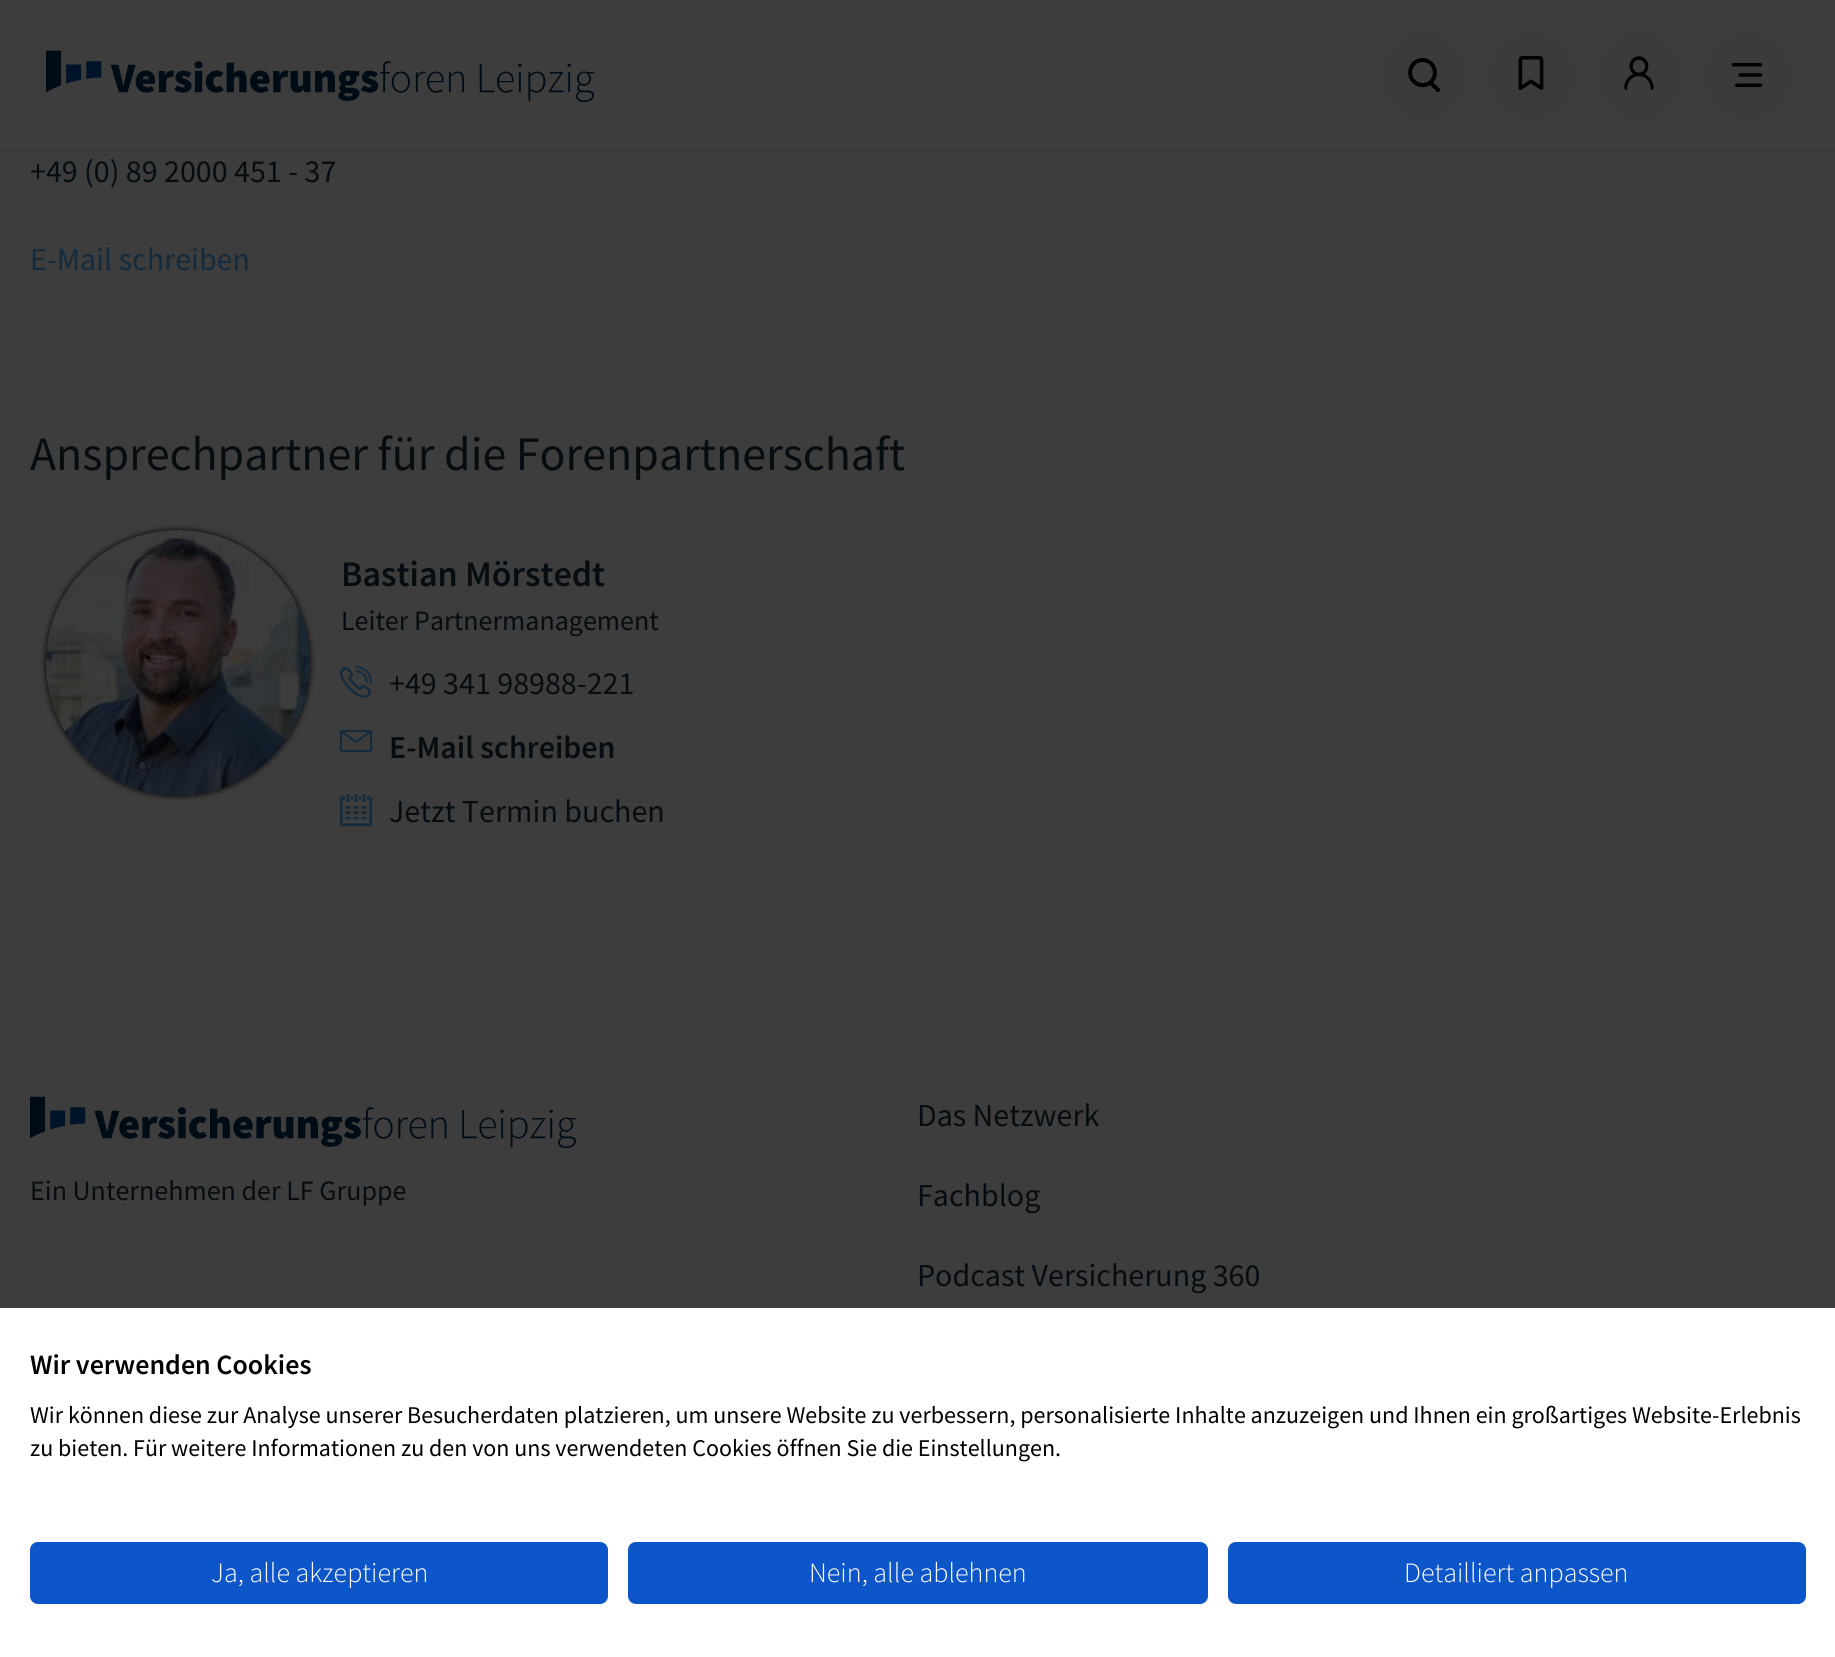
import math
import cairo


def round_path(ctx, x, y, w, h, r):
	ctx.new_sub_path()
	for i, (u, v) in enumerate([(x + w - r, y + h - r), (x + r, y + h - r), (x + r, y + r), (x + w - r, y + r)]):
		ctx.arc(u, v, r, i * math.pi / 2, (i + 1) * math.pi / 2)
	ctx.close_path()

def blur_box(ctx, x, y, w, h, r, blur, alpha):
	ctx.push_group_with_content(cairo.CONTENT_ALPHA)
	ctx.set_operator(cairo.OPERATOR_SOURCE)
	for i in range(15, -16, -2):
		e = blur * i / 6
		if min(w, h) + 2 * e > 0:
			ctx.set_source_rgba(0, 0, 0, alpha * math.erfc((i - 1) / 8.5) / 2)
			round_path(ctx, x - e, y - e, w + 2 * e, h + 2 * e, max(0, min(r + e + blur * .6, min(w, h) / 2 + e)))
			ctx.fill()
	ctx.mask(ctx.pop_group())

def paste(ctx, path, x, y, w, h):
	ctx.save()
	ctx.set_source_surface(cairo.ImageSurface.create_from_png(path), x, y)
	ctx.rectangle(x, y, w, h)
	ctx.fill()
	ctx.restore()

def draw(ctx):
	ctx.set_source_rgb(0.239, 0.239, 0.239)
	ctx.paint()
	ctx.set_source_rgb(0.224, 0.224, 0.224)
	ctx.rectangle(0, 150, 1835, 2)
	ctx.fill()
	paste(ctx, 'media/1.png', 46, 50, 548, 52)
	ctx.set_source_rgb(0.227, 0.231, 0.231)
	ctx.arc(1424, 76, 44, 0, 2 * math.pi)
	ctx.fill()
	paste(ctx, 'media/2.png', 1408, 58, 32, 34)
	ctx.arc(1532, 76, 44, 0, 2 * math.pi)
	ctx.fill()
	paste(ctx, 'media/3.png', 1518, 56, 26, 34)
	ctx.arc(1640, 76, 44, 0, 2 * math.pi)
	ctx.fill()
	paste(ctx, 'media/4.png', 1624, 56, 30, 34)
	ctx.arc(1748, 76, 44, 0, 2 * math.pi)
	ctx.fill()
	paste(ctx, 'media/5.png', 1731, 63, 32, 24)
	ctx.select_font_face('Source Sans Pro')
	ctx.set_font_size(32)
	ctx.set_source_rgb(0.027, 0.047, 0.059)
	ctx.move_to(30, 182)
	ctx.show_text('+49 (0) 89 2000 451 - 37')
	ctx.set_source_rgb(0.075, 0.169, 0.239)
	ctx.move_to(30, 270)
	ctx.show_text('E-Mail schreiben')
	ctx.set_font_size(48)
	ctx.set_source_rgb(0.027, 0.047, 0.059)
	ctx.move_to(30, 470)
	ctx.show_text('Ansprechpartner für die Forenpartnerschaft')
	ctx.set_source_rgb(0, 0, 0)
	blur_box(ctx, 46, 530, 264, 266, 132, 3, 1)
	paste(ctx, 'media/6.png', 46, 530, 264, 266)
	ctx.select_font_face('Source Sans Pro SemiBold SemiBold')
	ctx.set_font_size(36)
	ctx.set_source_rgb(0.027, 0.047, 0.059)
	ctx.move_to(341, 586)
	ctx.show_text('Bastian Mörstedt')
	ctx.select_font_face('Source Sans Pro')
	ctx.set_font_size(28)
	ctx.move_to(341, 630)
	ctx.show_text('Leiter Partnermanagement')
	paste(ctx, 'media/7.png', 340, 666, 32, 32)
	ctx.set_font_size(32)
	ctx.move_to(389, 694)
	ctx.show_text('+49 341 98988-221')
	paste(ctx, 'media/8.png', 340, 730, 32, 22)
	ctx.select_font_face('Source Sans Pro SemiBold SemiBold')
	ctx.move_to(389, 758)
	ctx.show_text('E-Mail schreiben')
	paste(ctx, 'media/9.png', 340, 794, 32, 32)
	ctx.select_font_face('Source Sans Pro')
	ctx.move_to(389, 822)
	ctx.show_text('Jetzt Termin buchen')
	ctx.set_source_rgb(0.224, 0.224, 0.224)
	ctx.rectangle(0, 970, 1835, 2)
	ctx.fill()
	paste(ctx, 'media/10.png', 30, 1096, 546, 52)
	ctx.set_font_size(28)
	ctx.set_source_rgb(0.027, 0.047, 0.059)
	ctx.move_to(30, 1200)
	ctx.show_text('Ein Unternehmen der LF Gruppe')
	ctx.set_font_size(32)
	for x, y, s in [
		(917, 1126, 'Das Netzwerk'),
		(917, 1206, 'Fachblog'),
		(917, 1286, 'Podcast Versicherung 360'),
	]:
		ctx.move_to(x, y)
		ctx.show_text(s)
	ctx.set_source_rgb(1, 1, 1)
	ctx.rectangle(0, 1308, 1835, 349)
	ctx.fill()
	ctx.select_font_face('Source Sans Pro SemiBold SemiBold')
	ctx.set_font_size(28)
	ctx.set_source_rgb(0, 0, 0)
	ctx.move_to(30, 1374)
	ctx.show_text('Wir verwenden Cookies')
	ctx.select_font_face('Source Sans Pro')
	ctx.set_font_size(24)
	ctx.move_to(30, 1423)
	ctx.show_text('Wir können diese zur Analyse unserer Besucherdaten platzieren, um unsere Website zu verbessern, personalisierte Inhalte anzuzeigen und Ihnen ein großartiges Website-Erlebnis')
	ctx.move_to(30, 1456)
	ctx.show_text('zu bieten. Für weitere Informationen zu den von uns verwendeten Cookies öffnen Sie die Einstellungen.')
	ctx.set_source_rgb(0.051, 0.337, 0.788)
	round_path(ctx, 31, 1543, 576, 60, 7)
	ctx.fill_preserve()
	ctx.stroke()
	ctx.select_font_face('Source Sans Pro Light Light')
	ctx.set_font_size(28)
	ctx.set_source_rgb(1, 1, 1)
	ctx.move_to(211, 1582)
	ctx.show_text('Ja, alle akzeptieren')
	ctx.set_source_rgb(0.051, 0.337, 0.788)
	round_path(ctx, 629, 1543, 578, 60, 7)
	ctx.fill_preserve()
	ctx.stroke()
	ctx.set_source_rgb(1, 1, 1)
	ctx.move_to(809, 1582)
	ctx.show_text('Nein, alle ablehnen')
	ctx.set_source_rgb(0.051, 0.337, 0.788)
	round_path(ctx, 1229, 1543, 576, 60, 7)
	ctx.fill_preserve()
	ctx.stroke()
	ctx.set_source_rgb(1, 1, 1)
	ctx.move_to(1404, 1582)
	ctx.show_text('Detailliert anpassen')


surface = cairo.ImageSurface(cairo.FORMAT_RGB24, 1835, 1657)
ctx = cairo.Context(surface)
options = cairo.FontOptions()
options.set_hint_metrics(cairo.HINT_METRICS_OFF)
options.set_hint_style(cairo.HINT_STYLE_NONE)
ctx.set_font_options(options)
ctx.set_miter_limit(4)
draw(ctx)
surface.write_to_png('image.png')
